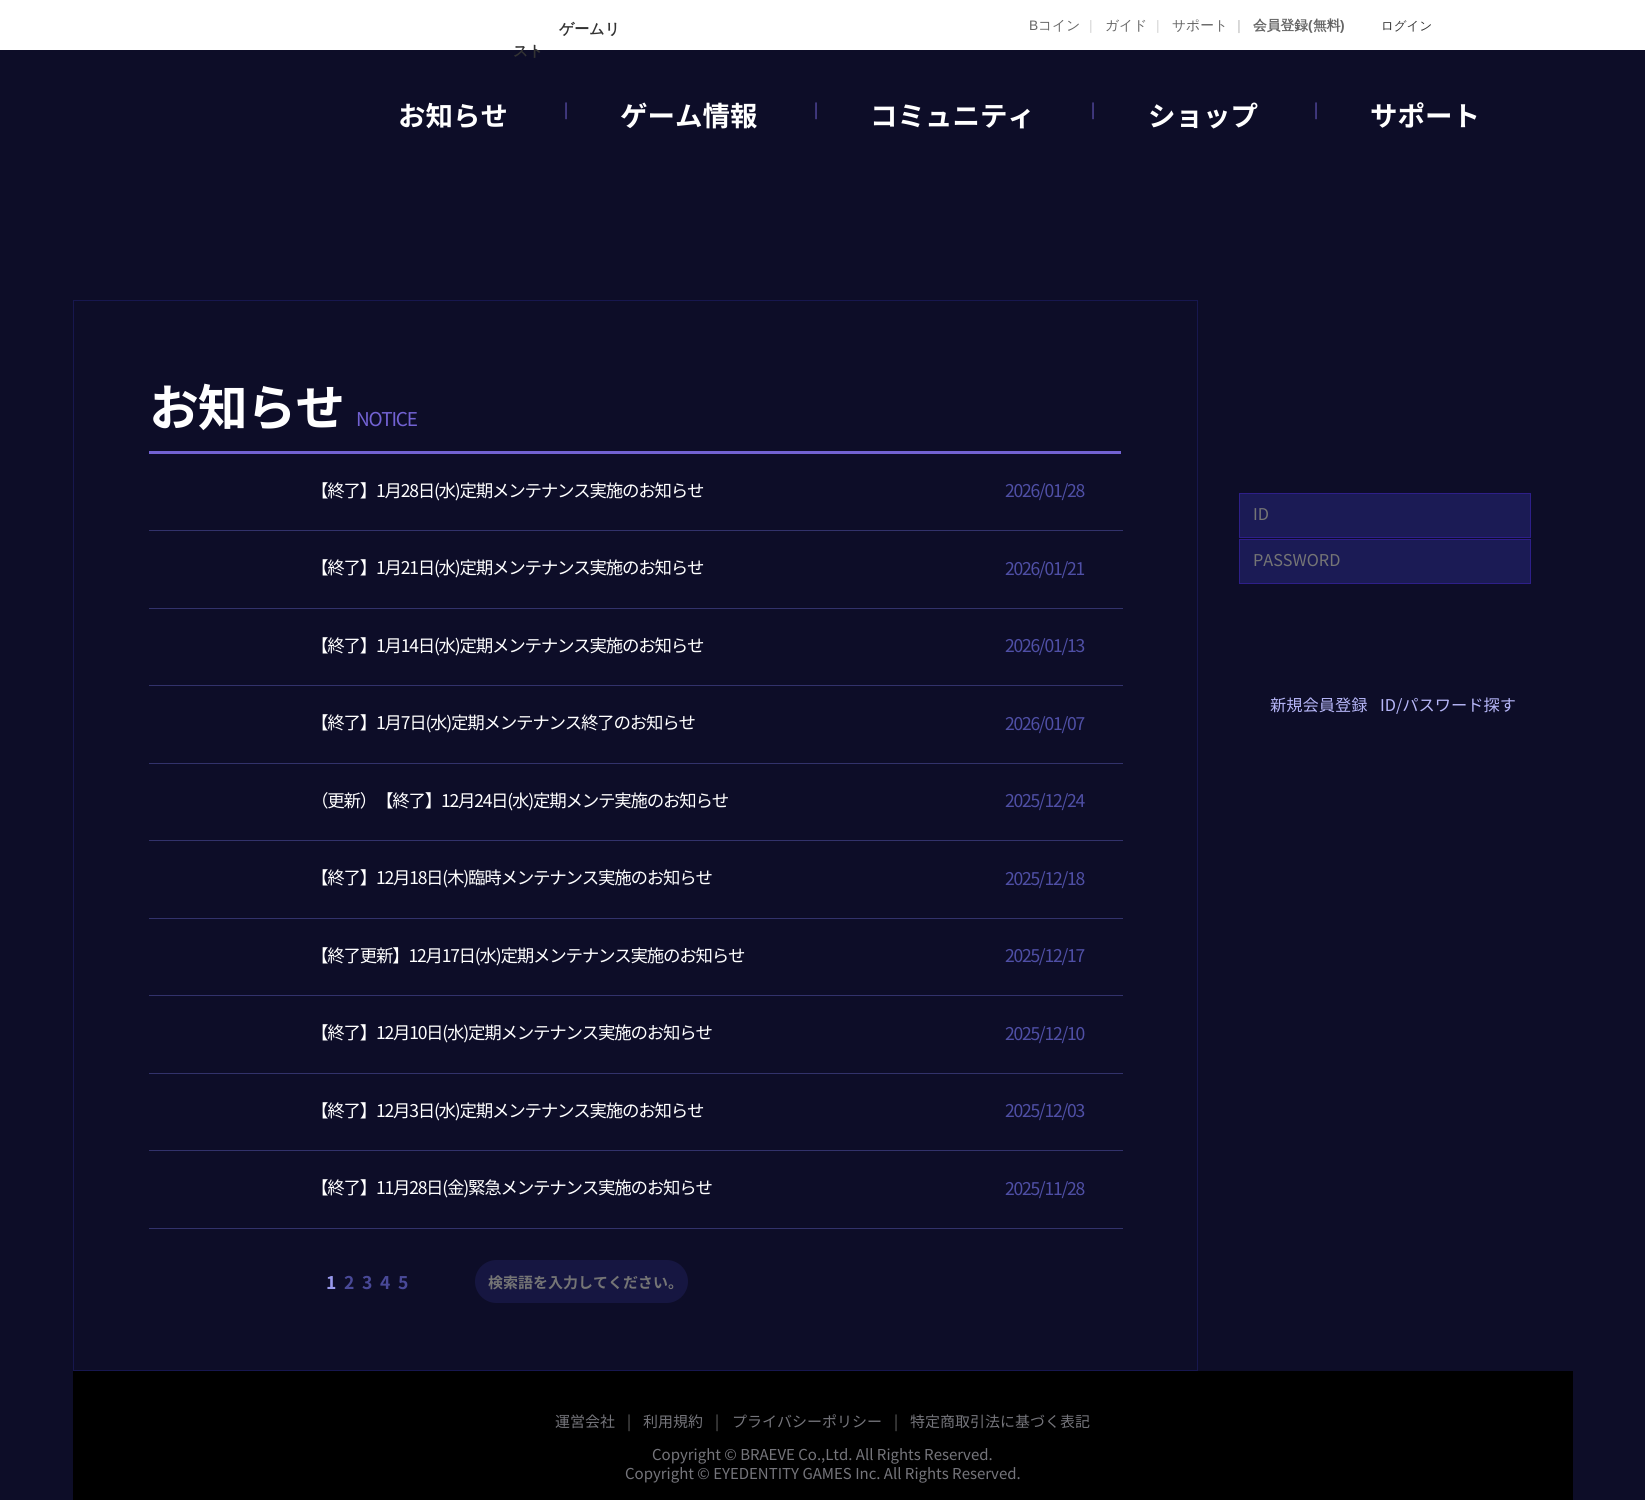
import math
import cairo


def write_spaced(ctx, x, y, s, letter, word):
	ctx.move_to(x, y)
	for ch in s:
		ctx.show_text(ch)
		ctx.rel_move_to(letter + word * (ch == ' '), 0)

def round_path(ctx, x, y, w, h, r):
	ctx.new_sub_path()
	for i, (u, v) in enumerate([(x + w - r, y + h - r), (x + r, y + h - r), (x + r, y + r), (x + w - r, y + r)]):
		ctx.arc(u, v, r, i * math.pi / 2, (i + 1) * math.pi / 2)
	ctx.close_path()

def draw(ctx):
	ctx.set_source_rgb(0.051, 0.051, 0.157)
	ctx.paint()
	ctx.set_source_rgb(1, 1, 1)
	ctx.rectangle(0, 0, 1645, 50)
	ctx.fill()
	ctx.select_font_face('WenQuanYi Zen Hei', cairo.FONT_SLANT_NORMAL, cairo.FONT_WEIGHT_BOLD)
	ctx.set_font_size(15)
	ctx.set_source_rgb(0.2, 0.2, 0.2)
	ctx.move_to(559, 34)
	ctx.show_text('ゲームリ')
	ctx.move_to(513, 56)
	ctx.show_text('スト')
	ctx.select_font_face('Liberation Sans')
	ctx.set_font_size(13.75)
	ctx.set_source_rgb(0.4, 0.4, 0.4)
	ctx.move_to(1029, 30)
	ctx.show_text('B')
	ctx.select_font_face('WenQuanYi Zen Hei Medium')
	ctx.move_to(1038, 30)
	ctx.show_text('コイン')
	ctx.select_font_face('Liberation Sans')
	ctx.set_source_rgb(0.831, 0.831, 0.831)
	ctx.move_to(1089, 30)
	ctx.show_text('|')
	ctx.select_font_face('WenQuanYi Zen Hei Medium')
	ctx.set_source_rgb(0.4, 0.4, 0.4)
	ctx.move_to(1105, 30)
	ctx.show_text('ガイド')
	ctx.select_font_face('Liberation Sans')
	ctx.set_source_rgb(0.831, 0.831, 0.831)
	ctx.move_to(1156, 30)
	ctx.show_text('|')
	ctx.select_font_face('WenQuanYi Zen Hei Medium')
	ctx.set_source_rgb(0.4, 0.4, 0.4)
	ctx.move_to(1172, 30)
	ctx.show_text('サポート')
	ctx.select_font_face('Liberation Sans', cairo.FONT_SLANT_NORMAL, cairo.FONT_WEIGHT_BOLD)
	ctx.set_source_rgb(0.831, 0.831, 0.831)
	ctx.move_to(1237, 30)
	ctx.show_text('|')
	ctx.select_font_face('WenQuanYi Zen Hei', cairo.FONT_SLANT_NORMAL, cairo.FONT_WEIGHT_BOLD)
	ctx.set_source_rgb(0.4, 0.4, 0.4)
	ctx.move_to(1253, 30)
	ctx.show_text('会員登録')
	ctx.select_font_face('Liberation Sans', cairo.FONT_SLANT_NORMAL, cairo.FONT_WEIGHT_BOLD)
	ctx.move_to(1308, 30)
	ctx.show_text('(')
	ctx.select_font_face('WenQuanYi Zen Hei', cairo.FONT_SLANT_NORMAL, cairo.FONT_WEIGHT_BOLD)
	ctx.move_to(1313, 30)
	ctx.show_text('無料')
	ctx.select_font_face('Liberation Sans', cairo.FONT_SLANT_NORMAL, cairo.FONT_WEIGHT_BOLD)
	ctx.move_to(1340, 30)
	ctx.show_text(')')
	ctx.select_font_face('WenQuanYi Zen Hei Medium')
	ctx.set_font_size(12.5)
	ctx.set_source_rgb(0.2, 0.2, 0.2)
	ctx.move_to(1381, 30)
	ctx.show_text('ログイン')
	ctx.select_font_face('Noto Sans CJK JP', cairo.FONT_SLANT_NORMAL, cairo.FONT_WEIGHT_BOLD)
	ctx.set_font_size(27.5)
	ctx.set_source_rgb(1, 1, 1)
	ctx.move_to(398, 126)
	ctx.show_text('お知らせ')
	ctx.select_font_face('Noto Sans CJK JP')
	ctx.set_font_size(15)
	ctx.set_source_rgb(0.447, 0.384, 0.827)
	ctx.move_to(564, 115)
	ctx.show_text('|')
	ctx.select_font_face('Noto Sans CJK JP', cairo.FONT_SLANT_NORMAL, cairo.FONT_WEIGHT_BOLD)
	ctx.set_font_size(27.5)
	ctx.set_source_rgb(1, 1, 1)
	ctx.move_to(620, 126)
	ctx.show_text('ゲーム情報')
	ctx.select_font_face('Noto Sans CJK JP')
	ctx.set_font_size(15)
	ctx.set_source_rgb(0.447, 0.384, 0.827)
	ctx.move_to(814, 115)
	ctx.show_text('|')
	ctx.select_font_face('Noto Sans CJK JP', cairo.FONT_SLANT_NORMAL, cairo.FONT_WEIGHT_BOLD)
	ctx.set_font_size(27.5)
	ctx.set_source_rgb(1, 1, 1)
	ctx.move_to(870, 126)
	ctx.show_text('コミュニティ')
	ctx.select_font_face('Noto Sans CJK JP')
	ctx.set_font_size(15)
	ctx.set_source_rgb(0.447, 0.384, 0.827)
	ctx.move_to(1091, 115)
	ctx.show_text('|')
	ctx.select_font_face('Noto Sans CJK JP', cairo.FONT_SLANT_NORMAL, cairo.FONT_WEIGHT_BOLD)
	ctx.set_font_size(27.5)
	ctx.set_source_rgb(1, 1, 1)
	ctx.move_to(1148, 126)
	ctx.show_text('ショップ')
	ctx.select_font_face('Noto Sans CJK JP')
	ctx.set_font_size(15)
	ctx.set_source_rgb(0.447, 0.384, 0.827)
	ctx.move_to(1314, 115)
	ctx.show_text('|')
	ctx.select_font_face('Noto Sans CJK JP', cairo.FONT_SLANT_NORMAL, cairo.FONT_WEIGHT_BOLD)
	ctx.set_font_size(27.5)
	ctx.set_source_rgb(1, 1, 1)
	ctx.move_to(1370, 126)
	ctx.show_text('サポート')
	ctx.rectangle(73.5, 300.5, 1124, 1070)
	ctx.set_source_rgb(0.09, 0.09, 0.31)
	ctx.set_line_width(1)
	ctx.stroke()
	ctx.set_source_rgb(0.447, 0.384, 0.827)
	ctx.rectangle(149, 451, 972, 3)
	ctx.fill()
	ctx.set_font_size(50)
	ctx.set_source_rgb(1, 1, 1)
	write_spaced(ctx, 149, 426, 'お知らせ', -1.25, 0)
	ctx.select_font_face('Noto Sans CJK JP')
	ctx.set_font_size(19)
	ctx.set_source_rgb(0.447, 0.384, 0.827)
	write_spaced(ctx, 356, 426, 'NOTICE', -1.25, 0)
	ctx.set_font_size(17.5)
	ctx.set_source_rgb(1, 1, 1)
	write_spaced(ctx, 311, 497, '【終了】1月28日(水)定期メンテナンス実施のお知らせ', -1.25, 0)
	ctx.set_source_rgb(0.196, 0.196, 0.42)
	ctx.rectangle(149, 530, 974, 1)
	ctx.fill()
	ctx.set_source_rgb(0.31, 0.31, 0.651)
	write_spaced(ctx, 1005, 497, '2026/01/28', -1.25, 0)
	ctx.set_source_rgb(1, 1, 1)
	write_spaced(ctx, 311, 574, '【終了】1月21日(水)定期メンテナンス実施のお知らせ', -1.25, 0)
	ctx.set_source_rgb(0.196, 0.196, 0.42)
	ctx.rectangle(149, 608, 974, 1)
	ctx.fill()
	ctx.set_source_rgb(0.31, 0.31, 0.651)
	write_spaced(ctx, 1005, 575, '2026/01/21', -1.25, 0)
	ctx.set_source_rgb(1, 1, 1)
	write_spaced(ctx, 311, 652, '【終了】1月14日(水)定期メンテナンス実施のお知らせ', -1.25, 0)
	ctx.set_source_rgb(0.196, 0.196, 0.42)
	ctx.rectangle(149, 685, 974, 1)
	ctx.fill()
	ctx.set_source_rgb(0.31, 0.31, 0.651)
	write_spaced(ctx, 1005, 652, '2026/01/13', -1.25, 0)
	ctx.set_source_rgb(1, 1, 1)
	write_spaced(ctx, 311, 729, '【終了】1月7日(水)定期メンテナンス終了のお知らせ', -1.25, 0)
	ctx.set_source_rgb(0.196, 0.196, 0.42)
	ctx.rectangle(149, 763, 974, 1)
	ctx.fill()
	ctx.set_source_rgb(0.31, 0.31, 0.651)
	write_spaced(ctx, 1005, 730, '2026/01/07', -1.25, 0)
	ctx.set_source_rgb(1, 1, 1)
	write_spaced(ctx, 311, 807, '（更新）【終了】12月24日(水)定期メンテ実施のお知らせ', -1.25, 0)
	ctx.set_source_rgb(0.196, 0.196, 0.42)
	ctx.rectangle(149, 840, 974, 1)
	ctx.fill()
	ctx.set_source_rgb(0.31, 0.31, 0.651)
	write_spaced(ctx, 1005, 807, '2025/12/24', -1.25, 0)
	ctx.set_source_rgb(1, 1, 1)
	write_spaced(ctx, 311, 884, '【終了】12月18日(木)臨時メンテナンス実施のお知らせ', -1.25, 0)
	ctx.set_source_rgb(0.196, 0.196, 0.42)
	ctx.rectangle(149, 918, 974, 1)
	ctx.fill()
	ctx.set_source_rgb(0.31, 0.31, 0.651)
	write_spaced(ctx, 1005, 885, '2025/12/18', -1.25, 0)
	ctx.set_source_rgb(1, 1, 1)
	write_spaced(ctx, 311, 962, '【終了更新】12月17日(水)定期メンテナンス実施のお知らせ', -1.25, 0)
	ctx.set_source_rgb(0.196, 0.196, 0.42)
	ctx.rectangle(149, 995, 974, 1)
	ctx.fill()
	ctx.set_source_rgb(0.31, 0.31, 0.651)
	write_spaced(ctx, 1005, 962, '2025/12/17', -1.25, 0)
	ctx.set_source_rgb(1, 1, 1)
	write_spaced(ctx, 311, 1039, '【終了】12月10日(水)定期メンテナンス実施のお知らせ', -1.25, 0)
	ctx.set_source_rgb(0.196, 0.196, 0.42)
	ctx.rectangle(149, 1073, 974, 1)
	ctx.fill()
	ctx.set_source_rgb(0.31, 0.31, 0.651)
	write_spaced(ctx, 1005, 1040, '2025/12/10', -1.25, 0)
	ctx.set_source_rgb(1, 1, 1)
	write_spaced(ctx, 311, 1117, '【終了】12月3日(水)定期メンテナンス実施のお知らせ', -1.25, 0)
	ctx.set_source_rgb(0.196, 0.196, 0.42)
	ctx.rectangle(149, 1150, 974, 1)
	ctx.fill()
	ctx.set_source_rgb(0.31, 0.31, 0.651)
	write_spaced(ctx, 1005, 1117, '2025/12/03', -1.25, 0)
	ctx.set_source_rgb(1, 1, 1)
	write_spaced(ctx, 311, 1194, '【終了】11月28日(金)緊急メンテナンス実施のお知らせ', -1.25, 0)
	ctx.set_source_rgb(0.196, 0.196, 0.42)
	ctx.rectangle(149, 1228, 974, 1)
	ctx.fill()
	ctx.set_source_rgb(0.31, 0.31, 0.651)
	write_spaced(ctx, 1005, 1195, '2025/11/28', -1.25, 0)
	ctx.select_font_face('Noto Sans CJK JP', cairo.FONT_SLANT_NORMAL, cairo.FONT_WEIGHT_BOLD)
	ctx.set_source_rgb(0.6, 0.6, 0.929)
	ctx.move_to(326, 1289)
	ctx.show_text('1')
	ctx.set_source_rgb(0.286, 0.286, 0.596)
	for x, y, s in [
		(344, 1289, '2'),
		(362, 1289, '3'),
		(380, 1289, '4'),
		(398, 1289, '5'),
	]:
		ctx.move_to(x, y)
		ctx.show_text(s)
	ctx.set_source_rgb(0.086, 0.086, 0.255)
	round_path(ctx, 475, 1260, 213, 43, 21.5)
	ctx.fill()
	ctx.set_font_size(15)
	ctx.set_source_rgb(0.459, 0.459, 0.459)
	ctx.move_to(488, 1288)
	ctx.show_text('検索語を入力してください。')
	ctx.set_source_rgb(0.106, 0.106, 0.333)
	ctx.rectangle(1239.5, 493.5, 291, 44)
	ctx.fill_preserve()
	ctx.set_source_rgb(0.18, 0.122, 0.537)
	ctx.stroke()
	ctx.select_font_face('Noto Sans CJK JP')
	ctx.set_font_size(16.25)
	ctx.set_source_rgb(0.459, 0.459, 0.459)
	ctx.move_to(1253, 520)
	ctx.show_text('ID')
	ctx.set_source_rgb(0.106, 0.106, 0.333)
	ctx.rectangle(1239.5, 539.5, 291, 44)
	ctx.fill_preserve()
	ctx.set_source_rgb(0.18, 0.122, 0.537)
	ctx.stroke()
	ctx.set_source_rgb(0.459, 0.459, 0.459)
	ctx.move_to(1253, 566)
	ctx.show_text('PASSWORD')
	ctx.set_source_rgb(0.714, 0.714, 0.969)
	ctx.move_to(1270, 711)
	ctx.show_text('新規会員登録')
	ctx.move_to(1380, 711)
	ctx.show_text('ID/パスワード探す')
	ctx.set_source_rgb(0, 0, 0)
	ctx.rectangle(73, 1371, 1500, 129)
	ctx.fill()
	ctx.set_font_size(15)
	ctx.set_source_rgb(0.459, 0.459, 0.482)
	ctx.move_to(555, 1427)
	ctx.show_text('運営会社')
	ctx.set_source_rgb(0.4, 0.4, 0.4)
	ctx.move_to(627, 1427)
	ctx.show_text('|')
	ctx.set_source_rgb(0.459, 0.459, 0.482)
	ctx.move_to(643, 1427)
	ctx.show_text('利用規約')
	ctx.set_source_rgb(0.4, 0.4, 0.4)
	ctx.move_to(715, 1427)
	ctx.show_text('|')
	ctx.set_source_rgb(0.459, 0.459, 0.482)
	ctx.move_to(732, 1427)
	ctx.show_text('プライバシーポリシー')
	ctx.set_source_rgb(0.4, 0.4, 0.4)
	ctx.move_to(894, 1427)
	ctx.show_text('|')
	ctx.set_source_rgb(0.459, 0.459, 0.482)
	for x, y, s in [
		(910, 1427, '特定商取引法に基づく表記'),
		(652, 1460, 'Copyright © BRAEVE Co.,Ltd. All Rights Reserved.'),
		(625, 1479, 'Copyright © EYEDENTITY GAMES Inc. All Rights Reserved.'),
	]:
		ctx.move_to(x, y)
		ctx.show_text(s)


surface = cairo.ImageSurface(cairo.FORMAT_RGB24, 1645, 1500)
ctx = cairo.Context(surface)
options = cairo.FontOptions()
options.set_hint_metrics(cairo.HINT_METRICS_OFF)
options.set_hint_style(cairo.HINT_STYLE_NONE)
ctx.set_font_options(options)
ctx.set_miter_limit(4)
draw(ctx)
surface.write_to_png('image.png')
